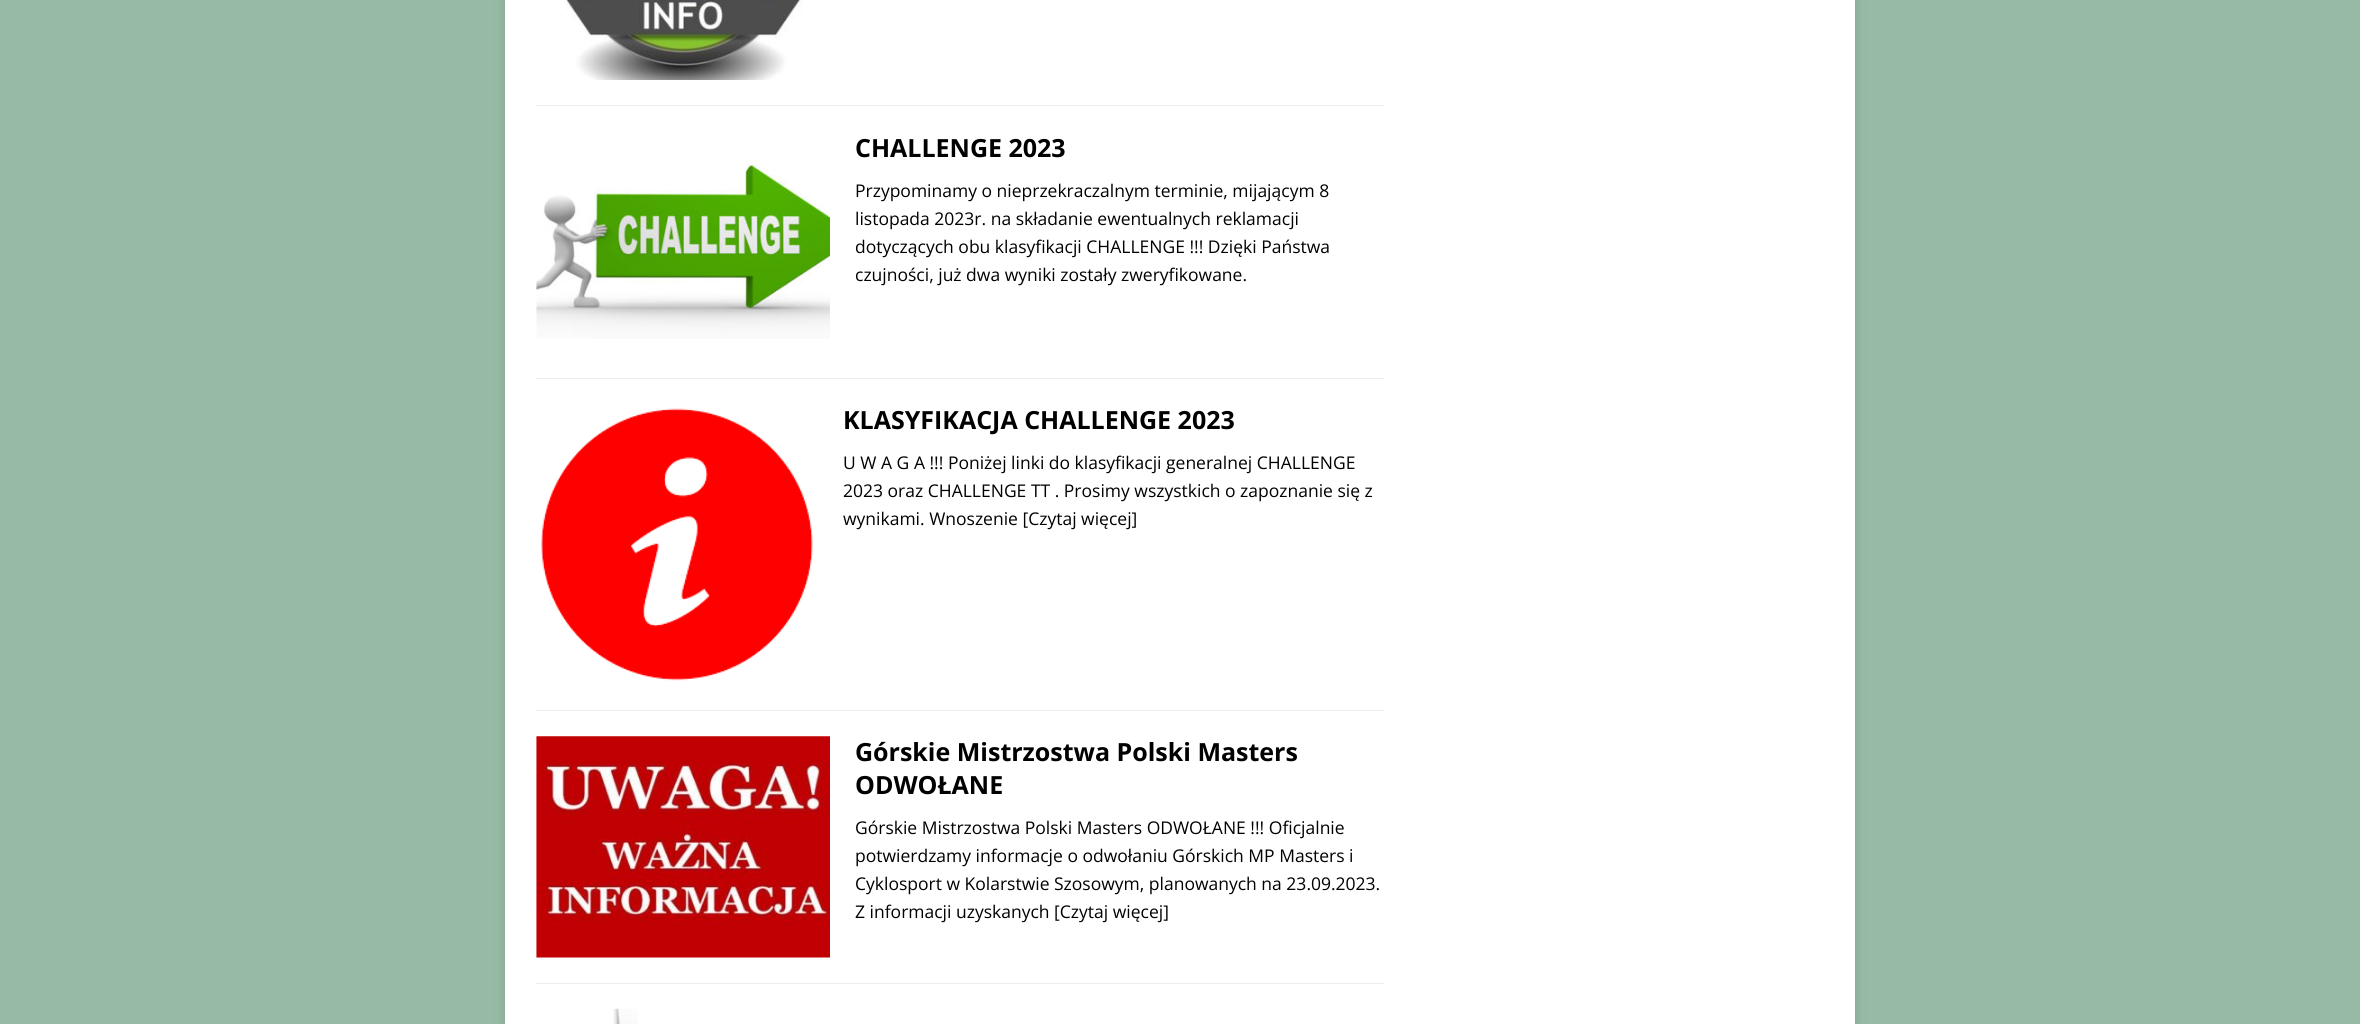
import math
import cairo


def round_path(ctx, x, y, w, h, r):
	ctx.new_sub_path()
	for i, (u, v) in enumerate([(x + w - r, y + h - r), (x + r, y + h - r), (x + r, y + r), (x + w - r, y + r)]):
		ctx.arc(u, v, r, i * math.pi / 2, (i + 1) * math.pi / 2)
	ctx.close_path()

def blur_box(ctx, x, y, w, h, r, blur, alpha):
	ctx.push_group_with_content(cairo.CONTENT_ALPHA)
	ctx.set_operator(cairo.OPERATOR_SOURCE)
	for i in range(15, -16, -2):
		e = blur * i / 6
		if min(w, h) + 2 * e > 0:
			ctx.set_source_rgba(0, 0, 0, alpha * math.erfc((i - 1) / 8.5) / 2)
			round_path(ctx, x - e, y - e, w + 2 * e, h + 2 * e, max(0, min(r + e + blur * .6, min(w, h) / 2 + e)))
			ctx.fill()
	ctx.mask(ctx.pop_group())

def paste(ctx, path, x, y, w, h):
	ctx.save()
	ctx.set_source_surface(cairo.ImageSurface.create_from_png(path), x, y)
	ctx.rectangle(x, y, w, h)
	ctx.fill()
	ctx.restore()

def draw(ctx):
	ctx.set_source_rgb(0.588, 0.729, 0.643)
	ctx.paint()
	ctx.set_source_rgb(0.196, 0.196, 0.196)
	blur_box(ctx, 505, -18, 1350, 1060, 0, 6, 0.17)
	ctx.set_source_rgb(1, 1, 1)
	ctx.rectangle(505, 0, 1350, 1024)
	ctx.fill()
	ctx.set_source_rgb(0.922, 0.922, 0.922)
	ctx.rectangle(536, 105, 848, 1)
	ctx.fill()
	paste(ctx, 'media/1.png', 565, 0, 238, 80)
	ctx.rectangle(536, 378, 848, 1)
	ctx.fill()
	paste(ctx, 'media/2.png', 536, 160, 294, 179)
	ctx.select_font_face('Open Sans', cairo.FONT_SLANT_NORMAL, cairo.FONT_WEIGHT_BOLD)
	ctx.set_font_size(25)
	ctx.set_source_rgb(0, 0, 0)
	ctx.move_to(855, 157)
	ctx.show_text('CHALLENGE 2023')
	ctx.select_font_face('Open Sans')
	ctx.set_font_size(17.5)
	for x, y, s in [
		(855, 197, 'Przypominamy o nieprzekraczalnym terminie, mijającym 8'),
		(855, 225, 'listopada 2023r. na składanie ewentualnych reklamacji'),
		(855, 253, 'dotyczących obu klasyfikacji CHALLENGE !!! Dzięki Państwa'),
		(855, 281, 'czujności, już dwa wyniki zostały zweryfikowane.'),
	]:
		ctx.move_to(x, y)
		ctx.show_text(s)
	ctx.set_source_rgb(0.922, 0.922, 0.922)
	ctx.rectangle(536, 710, 848, 1)
	ctx.fill()
	paste(ctx, 'media/3.png', 541, 408, 272, 273)
	ctx.select_font_face('Open Sans', cairo.FONT_SLANT_NORMAL, cairo.FONT_WEIGHT_BOLD)
	ctx.set_font_size(25)
	ctx.set_source_rgb(0, 0, 0)
	ctx.move_to(843, 429)
	ctx.show_text('KLASYFIKACJA CHALLENGE 2023')
	ctx.select_font_face('Open Sans')
	ctx.set_font_size(17.5)
	for x, y, s in [
		(843, 469, 'U W A G A !!! Poniżej linki do klasyfikacji generalnej CHALLENGE'),
		(843, 497, '2023 oraz CHALLENGE TT . Prosimy wszystkich o zapoznanie się z'),
		(843, 525, 'wynikami. Wnoszenie [Czytaj więcej]'),
	]:
		ctx.move_to(x, y)
		ctx.show_text(s)
	ctx.set_source_rgb(0.922, 0.922, 0.922)
	ctx.rectangle(536, 983, 848, 1)
	ctx.fill()
	paste(ctx, 'media/4.png', 536, 736, 294, 222)
	ctx.select_font_face('Open Sans', cairo.FONT_SLANT_NORMAL, cairo.FONT_WEIGHT_BOLD)
	ctx.set_font_size(25)
	ctx.set_source_rgb(0, 0, 0)
	ctx.move_to(855, 761)
	ctx.show_text('Górskie Mistrzostwa Polski Masters')
	ctx.move_to(855, 794)
	ctx.show_text('ODWOŁANE')
	ctx.select_font_face('Open Sans')
	ctx.set_font_size(17.5)
	for x, y, s in [
		(855, 834, 'Górskie Mistrzostwa Polski Masters ODWOŁANE !!! Oficjalnie'),
		(855, 862, 'potwierdzamy informacje o odwołaniu Górskich MP Masters i'),
		(855, 890, 'Cyklosport w Kolarstwie Szosowym, planowanych na 23.09.2023.'),
		(855, 918, 'Z informacji uzyskanych [Czytaj więcej]'),
	]:
		ctx.move_to(x, y)
		ctx.show_text(s)
	paste(ctx, 'media/5.png', 613, 1008, 25, 16)


surface = cairo.ImageSurface(cairo.FORMAT_RGB24, 2360, 1024)
ctx = cairo.Context(surface)
options = cairo.FontOptions()
options.set_hint_metrics(cairo.HINT_METRICS_OFF)
options.set_hint_style(cairo.HINT_STYLE_NONE)
ctx.set_font_options(options)
ctx.set_miter_limit(4)
draw(ctx)
surface.write_to_png('image.png')
